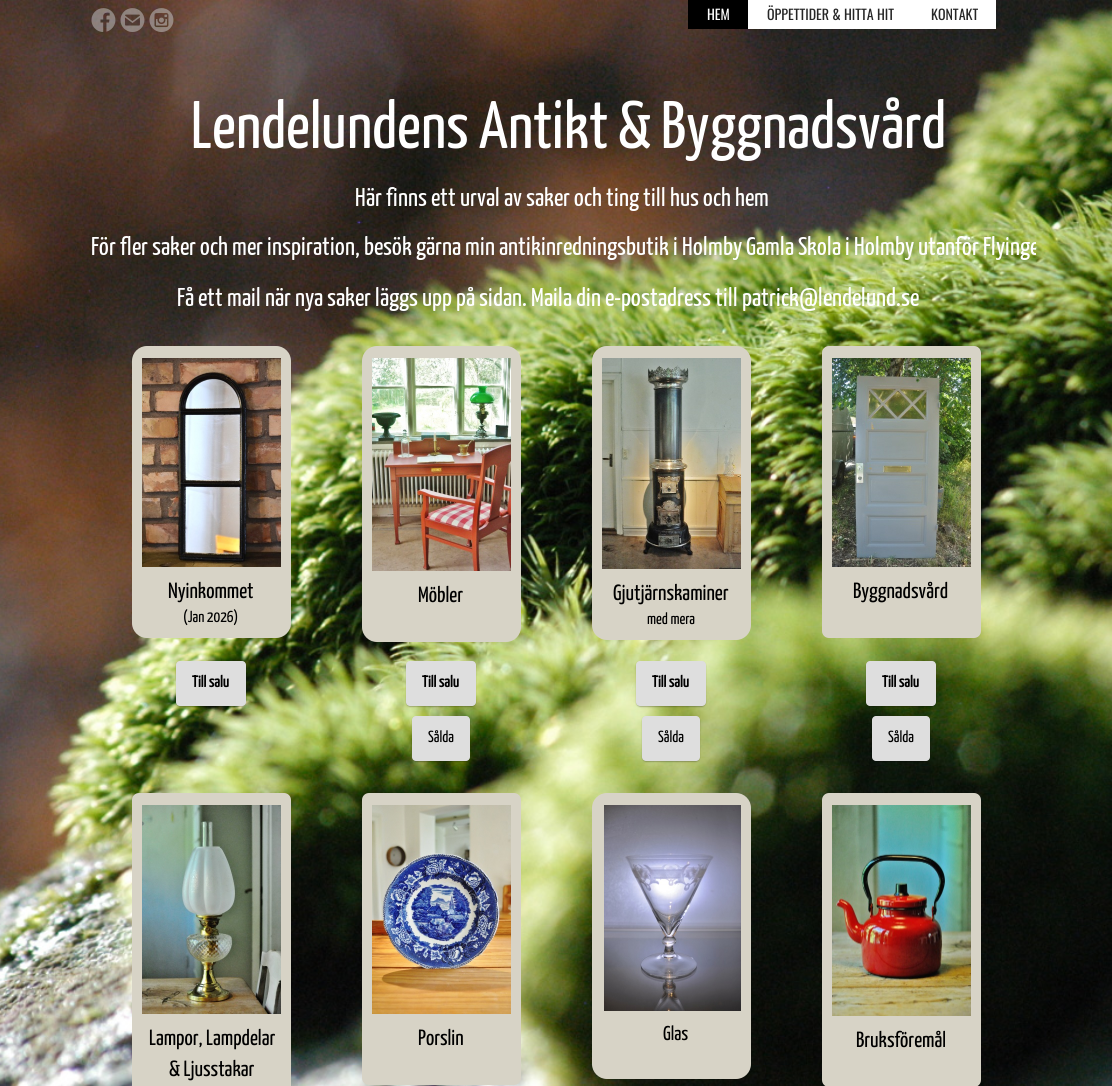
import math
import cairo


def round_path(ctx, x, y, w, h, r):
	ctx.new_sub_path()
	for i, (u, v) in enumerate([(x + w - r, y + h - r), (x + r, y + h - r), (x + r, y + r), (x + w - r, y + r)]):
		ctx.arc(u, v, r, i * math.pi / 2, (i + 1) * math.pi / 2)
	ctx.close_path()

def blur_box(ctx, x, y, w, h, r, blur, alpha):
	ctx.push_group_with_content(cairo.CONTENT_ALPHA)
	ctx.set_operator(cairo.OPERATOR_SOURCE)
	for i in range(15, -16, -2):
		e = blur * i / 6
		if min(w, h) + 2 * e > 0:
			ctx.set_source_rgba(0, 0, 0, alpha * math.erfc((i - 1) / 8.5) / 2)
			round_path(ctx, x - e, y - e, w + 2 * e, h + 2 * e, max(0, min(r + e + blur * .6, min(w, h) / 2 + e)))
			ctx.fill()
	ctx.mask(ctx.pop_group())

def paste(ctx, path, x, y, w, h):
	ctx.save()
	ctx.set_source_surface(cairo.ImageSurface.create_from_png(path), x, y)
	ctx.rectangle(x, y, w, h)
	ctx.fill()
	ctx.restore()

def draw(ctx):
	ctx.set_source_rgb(1, 1, 1)
	ctx.paint()
	paste(ctx, 'media/1.png', 0, 0, 1112, 1086)
	paste(ctx, 'media/2.png', 92, 187, 944, 124)
	paste(ctx, 'media/3.png', 91, 8, 25, 24)
	paste(ctx, 'media/4.png', 120, 8, 25, 24)
	paste(ctx, 'media/5.png', 149, 8, 25, 24)
	ctx.set_source_rgb(0, 0, 0)
	ctx.rectangle(688, 0, 60, 29)
	ctx.fill()
	ctx.select_font_face('Oswald')
	ctx.set_font_size(14)
	ctx.set_source_rgb(1, 1, 1)
	ctx.move_to(707, 20)
	ctx.show_text('HEM')
	ctx.rectangle(748, 0, 248, 29)
	ctx.fill()
	ctx.set_source_rgb(0.149, 0.149, 0.149)
	ctx.move_to(767, 20)
	ctx.show_text('ÖPPETTIDER & HITTA HIT')
	ctx.move_to(931, 20)
	ctx.show_text('KONTAKT')
	paste(ctx, 'media/6.png', 193, 97, 751, 64)
	ctx.set_source_rgb(0.843, 0.827, 0.776)
	round_path(ctx, 132, 346, 159, 292, 15)
	ctx.fill()
	paste(ctx, 'media/7.png', 142, 358, 139, 209)
	ctx.select_font_face('Yanone Kaffeesatz ExtraLight')
	ctx.set_font_size(22)
	ctx.set_source_rgb(0, 0, 0)
	ctx.move_to(168, 598)
	ctx.show_text('Nyinkommet')
	ctx.set_font_size(16)
	ctx.move_to(183, 622)
	ctx.show_text('(Jan 2026)')
	ctx.set_source_rgb(0, 0, 0)
	blur_box(ctx, 177, 663, 68, 43, 3, 1, 0.6)
	ctx.set_source_rgb(0.871, 0.871, 0.871)
	round_path(ctx, 176, 661, 70, 45, 4)
	ctx.fill()
	ctx.select_font_face('Yanone Kaffeesatz', cairo.FONT_SLANT_NORMAL, cairo.FONT_WEIGHT_BOLD)
	ctx.set_source_rgb(0, 0, 0)
	ctx.move_to(192, 687)
	ctx.show_text('Till salu')
	ctx.set_source_rgb(0.843, 0.827, 0.776)
	round_path(ctx, 362, 346, 159, 296, 15)
	ctx.fill()
	paste(ctx, 'media/8.png', 372, 358, 139, 213)
	ctx.select_font_face('Yanone Kaffeesatz ExtraLight')
	ctx.set_font_size(22)
	ctx.set_source_rgb(0, 0, 0)
	ctx.move_to(418, 602)
	ctx.show_text('Möbler')
	ctx.set_source_rgb(0, 0, 0)
	blur_box(ctx, 407, 663, 68, 43, 3, 1, 0.6)
	ctx.set_source_rgb(0.871, 0.871, 0.871)
	round_path(ctx, 406, 661, 70, 45, 4)
	ctx.fill()
	ctx.select_font_face('Yanone Kaffeesatz', cairo.FONT_SLANT_NORMAL, cairo.FONT_WEIGHT_BOLD)
	ctx.set_font_size(16)
	ctx.set_source_rgb(0, 0, 0)
	ctx.move_to(422, 687)
	ctx.show_text('Till salu')
	ctx.set_source_rgb(0, 0, 0)
	blur_box(ctx, 413, 718, 56, 43, 3, 1, 0.6)
	ctx.set_source_rgb(0.871, 0.871, 0.871)
	round_path(ctx, 412, 716, 58, 45, 4)
	ctx.fill()
	ctx.select_font_face('Yanone Kaffeesatz ExtraLight')
	ctx.set_source_rgb(0, 0, 0)
	ctx.move_to(428, 742)
	ctx.show_text('Sålda')
	ctx.set_source_rgb(0.843, 0.827, 0.776)
	round_path(ctx, 592, 346, 159, 294, 15)
	ctx.fill()
	paste(ctx, 'media/9.png', 602, 358, 139, 211)
	ctx.set_font_size(22)
	ctx.set_source_rgb(0, 0, 0)
	ctx.move_to(613, 600)
	ctx.show_text('Gjutjärnskaminer')
	ctx.set_font_size(16)
	ctx.move_to(647, 624)
	ctx.show_text('med mera')
	ctx.set_source_rgb(0, 0, 0)
	blur_box(ctx, 637, 663, 68, 43, 3, 1, 0.6)
	ctx.set_source_rgb(0.871, 0.871, 0.871)
	round_path(ctx, 636, 661, 70, 45, 4)
	ctx.fill()
	ctx.select_font_face('Yanone Kaffeesatz', cairo.FONT_SLANT_NORMAL, cairo.FONT_WEIGHT_BOLD)
	ctx.set_source_rgb(0, 0, 0)
	ctx.move_to(652, 687)
	ctx.show_text('Till salu')
	ctx.set_source_rgb(0, 0, 0)
	blur_box(ctx, 643, 718, 56, 43, 3, 1, 0.6)
	ctx.set_source_rgb(0.871, 0.871, 0.871)
	round_path(ctx, 642, 716, 58, 45, 4)
	ctx.fill()
	ctx.select_font_face('Yanone Kaffeesatz ExtraLight')
	ctx.set_source_rgb(0, 0, 0)
	ctx.move_to(658, 742)
	ctx.show_text('Sålda')
	ctx.set_source_rgb(0.843, 0.827, 0.776)
	round_path(ctx, 822, 346, 159, 292, 7)
	ctx.fill()
	paste(ctx, 'media/10.png', 832, 358, 139, 209)
	ctx.set_font_size(22)
	ctx.set_source_rgb(0, 0, 0)
	ctx.move_to(853, 598)
	ctx.show_text('Byggnadsvård')
	ctx.set_source_rgb(0, 0, 0)
	blur_box(ctx, 867, 663, 68, 43, 3, 1, 0.6)
	ctx.set_source_rgb(0.871, 0.871, 0.871)
	round_path(ctx, 866, 661, 70, 45, 4)
	ctx.fill()
	ctx.select_font_face('Yanone Kaffeesatz', cairo.FONT_SLANT_NORMAL, cairo.FONT_WEIGHT_BOLD)
	ctx.set_font_size(16)
	ctx.set_source_rgb(0, 0, 0)
	ctx.move_to(882, 687)
	ctx.show_text('Till salu')
	ctx.set_source_rgb(0, 0, 0)
	blur_box(ctx, 873, 718, 56, 43, 3, 1, 0.6)
	ctx.set_source_rgb(0.871, 0.871, 0.871)
	round_path(ctx, 872, 716, 58, 45, 4)
	ctx.fill()
	ctx.select_font_face('Yanone Kaffeesatz ExtraLight')
	ctx.set_source_rgb(0, 0, 0)
	ctx.move_to(888, 742)
	ctx.show_text('Sålda')
	ctx.set_source_rgb(0.843, 0.827, 0.776)
	round_path(ctx, 132, 793, 159, 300, 7)
	ctx.fill()
	paste(ctx, 'media/11.png', 142, 805, 139, 209)
	ctx.set_font_size(22)
	ctx.set_source_rgb(0, 0, 0)
	ctx.move_to(149, 1045)
	ctx.show_text('Lampor, Lampdelar')
	ctx.move_to(169, 1076)
	ctx.show_text('& Ljusstakar')
	ctx.set_source_rgb(0.843, 0.827, 0.776)
	round_path(ctx, 362, 793, 159, 292, 7)
	ctx.fill()
	paste(ctx, 'media/12.png', 372, 805, 139, 209)
	ctx.set_source_rgb(0, 0, 0)
	ctx.move_to(418, 1045)
	ctx.show_text('Porslin')
	ctx.set_source_rgb(0.843, 0.827, 0.776)
	round_path(ctx, 592, 793, 159, 286, 15)
	ctx.fill()
	paste(ctx, 'media/13.png', 604, 805, 137, 206)
	ctx.set_font_size(20)
	ctx.set_source_rgb(0, 0, 0)
	ctx.move_to(663, 1040)
	ctx.show_text('Glas')
	ctx.set_source_rgb(0.843, 0.827, 0.776)
	round_path(ctx, 822, 793, 159, 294, 7)
	ctx.fill()
	paste(ctx, 'media/14.png', 832, 805, 139, 211)
	ctx.set_font_size(22)
	ctx.set_source_rgb(0, 0, 0)
	ctx.move_to(856, 1047)
	ctx.show_text('Bruksföremål')


surface = cairo.ImageSurface(cairo.FORMAT_RGB24, 1112, 1086)
ctx = cairo.Context(surface)
options = cairo.FontOptions()
options.set_hint_metrics(cairo.HINT_METRICS_OFF)
options.set_hint_style(cairo.HINT_STYLE_NONE)
ctx.set_font_options(options)
ctx.set_miter_limit(4)
draw(ctx)
surface.write_to_png('image.png')
